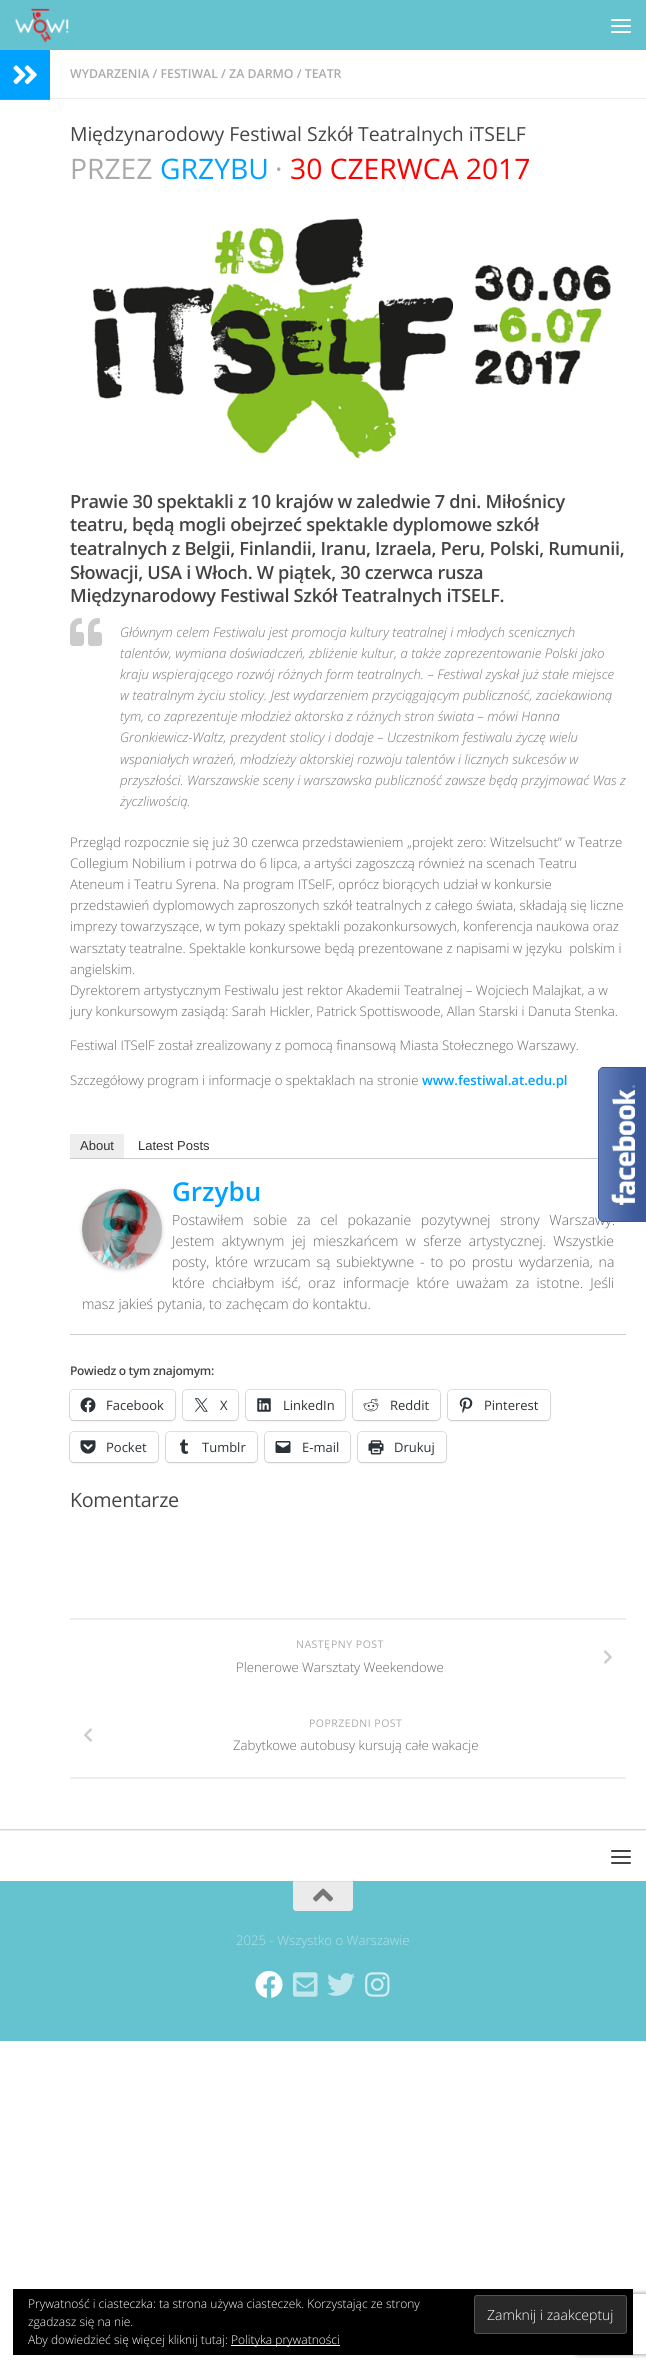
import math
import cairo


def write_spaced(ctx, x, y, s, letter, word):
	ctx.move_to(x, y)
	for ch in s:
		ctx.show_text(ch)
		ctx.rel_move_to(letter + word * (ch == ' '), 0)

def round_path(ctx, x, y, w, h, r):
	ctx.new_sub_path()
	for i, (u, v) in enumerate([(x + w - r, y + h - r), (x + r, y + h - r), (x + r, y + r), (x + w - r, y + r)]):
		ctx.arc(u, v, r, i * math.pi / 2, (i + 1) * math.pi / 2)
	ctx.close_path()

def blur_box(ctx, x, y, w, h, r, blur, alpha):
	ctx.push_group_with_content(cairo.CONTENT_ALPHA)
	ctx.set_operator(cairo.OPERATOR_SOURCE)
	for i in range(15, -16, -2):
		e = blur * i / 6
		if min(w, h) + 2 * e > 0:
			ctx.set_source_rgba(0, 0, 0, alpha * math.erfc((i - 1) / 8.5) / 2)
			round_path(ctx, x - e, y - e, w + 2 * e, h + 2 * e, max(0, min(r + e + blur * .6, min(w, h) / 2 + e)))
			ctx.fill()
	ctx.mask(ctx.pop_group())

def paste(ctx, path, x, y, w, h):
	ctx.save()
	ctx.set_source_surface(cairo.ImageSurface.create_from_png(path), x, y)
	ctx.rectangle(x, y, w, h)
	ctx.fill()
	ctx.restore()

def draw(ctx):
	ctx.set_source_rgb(1, 1, 1)
	ctx.paint()
	ctx.set_source_rgb(0.918, 0.918, 0.918)
	ctx.rectangle(0, 1829, 646, 1)
	ctx.fill()
	ctx.set_source_rgb(0, 0, 0)
	blur_box(ctx, 0, 51, 646, 1779, 0, 0.5, 0.1)
	ctx.set_source_rgb(0.396, 0.765, 0.816)
	ctx.rectangle(0, 0, 646, 50)
	ctx.fill()
	paste(ctx, 'media/1.png', 15, 8, 54, 35)
	ctx.set_source_rgb(1, 1, 1)
	round_path(ctx, 611, 19, 20, 2, 1)
	ctx.fill()
	round_path(ctx, 611, 25, 20, 2, 1)
	ctx.fill()
	round_path(ctx, 611, 31, 20, 2, 1)
	ctx.fill()
	ctx.rectangle(0, 50, 646, 1779)
	ctx.fill()
	ctx.set_source_rgb(0, 0.631, 1)
	ctx.rectangle(0, 50, 50, 49)
	ctx.fill()
	ctx.set_source_rgb(0.102, 0.667, 1)
	ctx.rectangle(0, 99, 50, 1)
	ctx.fill()
	paste(ctx, 'media/2.png', 13, 65, 24, 20)
	ctx.set_source_rgb(0.933, 0.933, 0.933)
	ctx.rectangle(50, 98, 596, 1)
	ctx.fill()
	ctx.select_font_face('Open Sans SemiBold')
	ctx.set_font_size(12.3)
	ctx.set_source_rgb(0.667, 0.667, 0.667)
	ctx.move_to(70, 78)
	ctx.show_text('WYDARZENIA / FESTIWAL / ZA DARMO / TEATR')
	ctx.select_font_face('Open Sans')
	ctx.set_font_size(19.4)
	ctx.set_source_rgb(0.267, 0.267, 0.267)
	ctx.move_to(70, 141)
	ctx.show_text('Mi')
	ctx.select_font_face('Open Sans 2')
	ctx.move_to(92, 141)
	ctx.show_text('ę')
	ctx.select_font_face('Open Sans')
	ctx.move_to(103, 141)
	ctx.show_text('dzynarodowy Festiwal Szkó')
	ctx.select_font_face('Open Sans 2')
	ctx.move_to(348, 141)
	ctx.show_text('ł')
	ctx.select_font_face('Open Sans')
	ctx.move_to(358, 141)
	ctx.show_text('Teatralnych iTSELF')
	ctx.set_font_size(28.25)
	ctx.set_source_rgb(0.667, 0.667, 0.667)
	ctx.move_to(70, 179)
	ctx.show_text('PRZEZ')
	ctx.set_source_rgb(0, 0.631, 1)
	ctx.move_to(160, 179)
	ctx.show_text('GRZYBU')
	ctx.set_source_rgb(0.667, 0.667, 0.667)
	ctx.move_to(275, 179)
	ctx.show_text('·')
	ctx.set_source_rgb(1, 0, 0)
	ctx.move_to(290, 179)
	ctx.show_text('30 CZERWCA 2017')
	paste(ctx, 'media/3.png', 92, 218, 520, 241)
	ctx.select_font_face('Open Sans SemiBold')
	ctx.set_font_size(18.15)
	ctx.set_source_rgb(0.267, 0.267, 0.267)
	for x, y, s in [
		(70, 508, 'Prawie 30 spektakli z 10 krajów w zaledwie 7 dni. Miłośnicy'),
		(70, 531, 'teatru, będą mogli obejrzeć spektakle dyplomowe szkół'),
		(70, 555, 'teatralnych z Belgii, Finlandii, Iranu, Izraela, Peru, Polski, Rumunii,'),
		(70, 579, 'Słowacji, USA i Włoch. W piątek, 30 czerwca rusza'),
		(70, 602, 'Międzynarodowy Festiwal Szkół Teatralnych iTSELF.'),
	]:
		write_spaced(ctx, x, y, s, -0.3, 0)
	paste(ctx, 'media/4.png', 70, 618, 32, 28)
	ctx.select_font_face('Open Sans Light', cairo.FONT_SLANT_ITALIC)
	ctx.set_font_size(13.2)
	ctx.set_source_rgb(0.467, 0.467, 0.467)
	for x, y, s in [
		(120, 637, 'Głównym celem Festiwalu jest promocja kultury teatralnej i młodych scenicznych'),
		(120, 658, 'talentów, wymiana doświadczeń, zbliżenie kultur, a także zaprezentowanie Polski jako'),
		(120, 679, 'kraju wspierającego rozwój różnych form teatralnych. – Festiwal zyskał już stałe miejsce'),
		(120, 700, 'w teatralnym życiu stolicy. Jest wydarzeniem przyciągającym publiczność, zaciekawioną'),
		(120, 721, 'tym, co zaprezentuje młodzież aktorska z różnych stron świata – mówi Hanna'),
		(120, 742, 'Gronkiewicz-Waltz, prezydent stolicy i dodaje – Uczestnikom festiwalu życzę wielu'),
		(120, 764, 'wspaniałych wrażeń, młodzieży aktorskiej rozwoju talentów i licznych sukcesów w'),
		(120, 785, 'przyszłości. Warszawskie sceny i warszawska publiczność zawsze będą przyjmować Was z'),
		(120, 806, 'życzliwością.'),
	]:
		ctx.move_to(x, y)
		ctx.show_text(s)
	ctx.select_font_face('Open Sans Light')
	ctx.set_source_rgb(0.4, 0.4, 0.4)
	for x, y, s in [
		(70, 847, 'Przegląd rozpocznie się już 30 czerwca przedstawieniem „projekt zero: Witzelsucht” w Teatrze'),
		(70, 868, 'Collegium Nobilium i potrwa do 6 lipca, a artyści zagoszczą również na scenach Teatru'),
		(70, 889, 'Ateneum i Teatru Syrena. Na program ITSelF, oprócz biorących udział w konkursie'),
		(70, 910, 'przedstawień dyplomowych zaproszonych szkół teatralnych z całego świata, składają się liczne'),
		(70, 931, 'imprezy towarzyszące, w tym pokazy spektakli pozakonkursowych, konferencja naukowa oraz'),
		(70, 953, 'warsztaty teatralne. Spektakle konkursowe będą prezentowane z napisami w języku  polskim i'),
		(70, 974, 'angielskim.'),
		(70, 995, 'Dyrektorem artystycznym Festiwalu jest rektor Akademii Teatralnej – Wojciech Malajkat, a w'),
		(70, 1016, 'jury konkursowym zasiądą: Sarah Hickler, Patrick Spottiswoode, Allan Starski i Danuta Stenka.'),
		(70, 1050, 'Festiwal ITSelF został zrealizowany z pomocą finansową Miasta Stołecznego Warszawy.'),
		(70, 1085, 'Szczegółowy program i informacje o spektaklach na stronie'),
	]:
		ctx.move_to(x, y)
		ctx.show_text(s)
	ctx.select_font_face('Open Sans SemiBold')
	ctx.set_source_rgb(0, 0.631, 1)
	ctx.move_to(422, 1085)
	ctx.show_text('www.festiwal.at.edu.pl')
	ctx.set_source_rgb(0.8, 0.8, 0.8)
	ctx.rectangle(70, 1158, 528, 1)
	ctx.fill()
	ctx.set_source_rgb(0.933, 0.933, 0.933)
	ctx.rectangle(70, 1134, 54, 24)
	ctx.fill()
	ctx.select_font_face('Liberation Sans')
	ctx.set_font_size(13)
	ctx.set_source_rgb(0.2, 0.2, 0.2)
	ctx.move_to(80, 1150)
	ctx.show_text('About')
	ctx.move_to(138, 1150)
	ctx.show_text('Latest Posts')
	ctx.set_source_rgb(0.8, 0.8, 0.8)
	ctx.rectangle(70, 1334, 556, 1)
	ctx.fill()
	ctx.select_font_face('Open Sans SemiBold')
	ctx.set_font_size(26)
	ctx.set_source_rgb(0, 0.631, 1)
	ctx.move_to(172, 1201)
	ctx.show_text('Grzybu')
	ctx.select_font_face('Open Sans Light')
	ctx.set_font_size(14)
	ctx.set_source_rgb(0.4, 0.4, 0.4)
	write_spaced(ctx, 172, 1225, 'Postawiłem sobie za cel pokazanie pozytywnej strony Warszawy.', 0, 6)
	write_spaced(ctx, 172, 1246, 'Jestem aktywnym jej mieszkańcem w sferze artystycznej. Wszystkie', 0, 3.75)
	write_spaced(ctx, 172, 1267, 'posty, które wrzucam są subiektywne - to po prostu wydarzenia, na', 0, 2.25)
	write_spaced(ctx, 172, 1288, 'które chciałbym iść, oraz informacje które uważam za istotne. Jeśli', 0, 3.5)
	ctx.move_to(82, 1309)
	ctx.show_text('masz jakieś pytania, to zachęcam do kontaktu.')
	ctx.set_source_rgb(0, 0, 0)
	blur_box(ctx, 82, 1190, 80, 80, 40, 2, 0.2)
	paste(ctx, 'media/5.png', 82, 1189, 80, 80)
	ctx.select_font_face('Open Sans SemiBold')
	ctx.set_font_size(12)
	ctx.set_source_rgb(0.267, 0.267, 0.267)
	write_spaced(ctx, 70, 1375, 'Powiedz o tym znajomym:', -0.3, 0)
	round_path(ctx, 69.5, 1389.5, 106, 31, 4.5)
	ctx.set_source_rgb(0.878, 0.878, 0.878)
	ctx.set_line_width(1)
	ctx.stroke()
	ctx.set_source_rgb(0, 0, 0)
	blur_box(ctx, 70, 1391, 105, 30, 4, 1, 0.12)
	ctx.set_source_rgb(1, 1, 1)
	round_path(ctx, 70, 1390, 105, 30, 4)
	ctx.fill()
	paste(ctx, 'media/6.png', 80, 1397, 16, 16)
	ctx.select_font_face('Open Sans')
	ctx.set_font_size(13)
	ctx.set_source_rgb(0.173, 0.2, 0.22)
	ctx.move_to(106, 1410)
	ctx.show_text('Facebook')
	round_path(ctx, 182.5, 1389.5, 56, 31, 4.5)
	ctx.set_source_rgb(0.878, 0.878, 0.878)
	ctx.stroke()
	ctx.set_source_rgb(0, 0, 0)
	blur_box(ctx, 183, 1391, 55, 30, 4, 1, 0.12)
	ctx.set_source_rgb(1, 1, 1)
	round_path(ctx, 183, 1390, 55, 30, 4)
	ctx.fill()
	paste(ctx, 'media/7.png', 194, 1398, 14, 14)
	ctx.set_source_rgb(0.173, 0.2, 0.22)
	ctx.move_to(220, 1410)
	ctx.show_text('X')
	round_path(ctx, 245.5, 1389.5, 100, 31, 4.5)
	ctx.set_source_rgb(0.878, 0.878, 0.878)
	ctx.stroke()
	ctx.set_source_rgb(0, 0, 0)
	blur_box(ctx, 246, 1391, 99, 30, 4, 1, 0.12)
	ctx.set_source_rgb(1, 1, 1)
	round_path(ctx, 246, 1390, 99, 30, 4)
	ctx.fill()
	paste(ctx, 'media/8.png', 257, 1398, 14, 14)
	ctx.set_source_rgb(0.173, 0.2, 0.22)
	ctx.move_to(283, 1410)
	ctx.show_text('LinkedIn')
	round_path(ctx, 352.5, 1389.5, 88, 31, 4.5)
	ctx.set_source_rgb(0.878, 0.878, 0.878)
	ctx.stroke()
	ctx.set_source_rgb(0, 0, 0)
	blur_box(ctx, 353, 1391, 87, 30, 4, 1, 0.12)
	ctx.set_source_rgb(1, 1, 1)
	round_path(ctx, 353, 1390, 87, 30, 4)
	ctx.fill()
	paste(ctx, 'media/9.png', 363, 1398, 16, 14)
	ctx.set_source_rgb(0.173, 0.2, 0.22)
	ctx.move_to(390, 1410)
	ctx.show_text('Reddit')
	round_path(ctx, 447.5, 1389.5, 103, 31, 4.5)
	ctx.set_source_rgb(0.878, 0.878, 0.878)
	ctx.stroke()
	ctx.set_source_rgb(0, 0, 0)
	blur_box(ctx, 448, 1391, 102, 30, 4, 1, 0.12)
	ctx.set_source_rgb(1, 1, 1)
	round_path(ctx, 448, 1390, 102, 30, 4)
	ctx.fill()
	paste(ctx, 'media/10.png', 459, 1397, 14, 16)
	ctx.set_source_rgb(0.173, 0.2, 0.22)
	ctx.move_to(484, 1410)
	ctx.show_text('Pinterest')
	round_path(ctx, 69.5, 1431.5, 89, 31, 4.5)
	ctx.set_source_rgb(0.878, 0.878, 0.878)
	ctx.stroke()
	ctx.set_source_rgb(0, 0, 0)
	blur_box(ctx, 70, 1433, 88, 30, 4, 1, 0.12)
	ctx.set_source_rgb(1, 1, 1)
	round_path(ctx, 70, 1432, 88, 30, 4)
	ctx.fill()
	paste(ctx, 'media/11.png', 80, 1440, 16, 14)
	ctx.set_source_rgb(0.173, 0.2, 0.22)
	ctx.move_to(106, 1452)
	ctx.show_text('Pocket')
	round_path(ctx, 165.5, 1431.5, 92, 31, 4.5)
	ctx.set_source_rgb(0.878, 0.878, 0.878)
	ctx.stroke()
	ctx.set_source_rgb(0, 0, 0)
	blur_box(ctx, 166, 1433, 91, 30, 4, 1, 0.12)
	ctx.set_source_rgb(1, 1, 1)
	round_path(ctx, 166, 1432, 91, 30, 4)
	ctx.fill()
	paste(ctx, 'media/12.png', 179, 1439, 10, 15)
	ctx.set_source_rgb(0.173, 0.2, 0.22)
	ctx.move_to(202, 1452)
	ctx.show_text('Tumblr')
	round_path(ctx, 264.5, 1431.5, 86, 31, 4.5)
	ctx.set_source_rgb(0.878, 0.878, 0.878)
	ctx.stroke()
	ctx.set_source_rgb(0, 0, 0)
	blur_box(ctx, 265, 1433, 85, 30, 4, 1, 0.12)
	ctx.set_source_rgb(1, 1, 1)
	round_path(ctx, 265, 1432, 85, 30, 4)
	ctx.fill()
	paste(ctx, 'media/13.png', 275, 1441, 16, 12)
	ctx.set_source_rgb(0.173, 0.2, 0.22)
	ctx.move_to(302, 1452)
	ctx.show_text('E-mail')
	round_path(ctx, 357.5, 1431.5, 89, 31, 4.5)
	ctx.set_source_rgb(0.878, 0.878, 0.878)
	ctx.stroke()
	ctx.set_source_rgb(0, 0, 0)
	blur_box(ctx, 358, 1433, 88, 30, 4, 1, 0.12)
	ctx.set_source_rgb(1, 1, 1)
	round_path(ctx, 358, 1432, 88, 30, 4)
	ctx.fill()
	paste(ctx, 'media/14.png', 368, 1440, 16, 15)
	ctx.set_source_rgb(0.173, 0.2, 0.22)
	ctx.move_to(394, 1452)
	ctx.show_text('Drukuj')
	ctx.set_font_size(19.75)
	ctx.set_source_rgb(0.267, 0.267, 0.267)
	write_spaced(ctx, 70, 1507, 'Komentarze', -0.3, 0)
	ctx.set_source_rgb(0.933, 0.933, 0.933)
	ctx.rectangle(70, 1618, 556, 2)
	ctx.fill()
	ctx.rectangle(70, 1777, 556, 2)
	ctx.fill()
	ctx.set_font_size(10.5)
	ctx.set_source_rgb(0.667, 0.667, 0.667)
	write_spaced(ctx, 296, 1648, 'NAST', 0.5, 0)
	ctx.select_font_face('Open Sans 2')
	write_spaced(ctx, 324, 1648, 'Ę', 0.5, 0)
	ctx.select_font_face('Open Sans')
	write_spaced(ctx, 331, 1648, 'PNY POST', 0.5, 0)
	paste(ctx, 'media/15.png', 604, 1650, 8, 14)
	ctx.select_font_face('Open Sans Light')
	ctx.set_font_size(13.2)
	ctx.set_source_rgb(0.4, 0.4, 0.4)
	ctx.move_to(236, 1672)
	ctx.show_text('Plenerowe Warsztaty Weekendowe')
	ctx.select_font_face('Open Sans')
	ctx.set_font_size(10.5)
	ctx.set_source_rgb(0.667, 0.667, 0.667)
	write_spaced(ctx, 309, 1727, 'POPRZEDNI POST', 0.5, 0)
	paste(ctx, 'media/16.png', 84, 1728, 8, 14)
	ctx.select_font_face('Open Sans Light')
	ctx.set_font_size(13.2)
	ctx.set_source_rgb(0.4, 0.4, 0.4)
	ctx.move_to(233, 1750)
	ctx.show_text('Zabytkowe autobusy kursują całe wakacje')
	ctx.set_source_rgb(0.933, 0.933, 0.933)
	ctx.rectangle(0, 1830, 646, 1)
	ctx.fill()
	ctx.set_source_rgb(0.267, 0.267, 0.267)
	round_path(ctx, 611, 1850, 20, 2, 1)
	ctx.fill()
	round_path(ctx, 611, 1856, 20, 2, 1)
	ctx.fill()
	round_path(ctx, 611, 1862, 20, 2, 1)
	ctx.fill()
	ctx.set_source_rgb(0.396, 0.765, 0.816)
	ctx.rectangle(0, 1881, 646, 160)
	ctx.fill()
	ctx.set_source_rgb(0.918, 0.918, 0.918)
	ctx.new_path()
	ctx.move_to(293, 1881)
	ctx.line_to(353, 1881)
	ctx.line_to(353, 1908)
	ctx.curve_to(353, 1909.5, 351.5, 1911, 350, 1911)
	ctx.line_to(296, 1911)
	ctx.curve_to(294.5, 1911, 293, 1909.5, 293, 1908)
	ctx.close_path()
	ctx.fill()
	ctx.set_source_rgb(0.871, 0.871, 0.871)
	ctx.rectangle(293, 1881, 60, 1)
	ctx.fill()
	paste(ctx, 'media/17.png', 313, 1888, 20, 14)
	ctx.set_source_rgb(0.698, 0.882, 0.91)
	ctx.move_to(236, 1945)
	ctx.show_text('2025 - Wszystko o Warszawie')
	paste(ctx, 'media/18.png', 255, 1971, 28, 27)
	paste(ctx, 'media/19.png', 293, 1972, 25, 25)
	paste(ctx, 'media/20.png', 327, 1973, 28, 23)
	paste(ctx, 'media/21.png', 365, 1972, 25, 25)
	paste(ctx, 'media/22.png', 598, 1067, 48, 155)
	ctx.save()
	ctx.set_fill_rule(cairo.FILL_RULE_EVEN_ODD)
	ctx.new_path()
	ctx.move_to(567, 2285)
	ctx.line_to(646, 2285)
	ctx.line_to(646, 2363)
	ctx.line_to(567, 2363)
	ctx.close_path()
	ctx.move_to(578, 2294)
	ctx.line_to(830, 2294)
	ctx.curve_to(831, 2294, 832, 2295, 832, 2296)
	ctx.line_to(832, 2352)
	ctx.curve_to(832, 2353, 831, 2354, 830, 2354)
	ctx.line_to(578, 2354)
	ctx.curve_to(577, 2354, 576, 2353, 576, 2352)
	ctx.line_to(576, 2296)
	ctx.curve_to(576, 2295, 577, 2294, 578, 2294)
	ctx.close_path()
	ctx.clip()
	ctx.set_source_rgb(0.502, 0.502, 0.502)
	blur_box(ctx, 576, 2294, 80, 60, 2, 2.5, 1)
	ctx.restore()
	ctx.set_source_rgb(0, 0, 0)
	ctx.rectangle(13, 2289, 620, 66)
	ctx.fill()
	ctx.set_font_size(12)
	ctx.set_source_rgb(1, 1, 1)
	ctx.move_to(28, 2308)
	ctx.show_text('Prywatność i ciasteczka: ta strona używa ciasteczek. Korzystając ze strony')
	ctx.move_to(28, 2326)
	ctx.show_text('zgadzasz się na nie.')
	ctx.set_source_rgb(0.157, 0.157, 0.157)
	round_path(ctx, 474.5, 2295.5, 152, 38, 2.5)
	ctx.fill_preserve()
	ctx.set_source_rgb(0.325, 0.325, 0.325)
	ctx.stroke()
	ctx.set_font_size(14)
	ctx.set_source_rgb(1, 1, 1)
	ctx.move_to(487, 2320)
	ctx.show_text('Zamknij i zaakceptuj')
	ctx.set_font_size(12)
	ctx.move_to(28, 2344)
	ctx.show_text('Aby dowiedzieć się więcej kliknij tutaj:')
	ctx.rectangle(231, 2345, 109, 1)
	ctx.fill()
	ctx.move_to(231, 2344)
	ctx.show_text('Polityka prywatności')


surface = cairo.ImageSurface(cairo.FORMAT_RGB24, 646, 2368)
ctx = cairo.Context(surface)
options = cairo.FontOptions()
options.set_hint_metrics(cairo.HINT_METRICS_OFF)
options.set_hint_style(cairo.HINT_STYLE_NONE)
ctx.set_font_options(options)
ctx.set_miter_limit(4)
draw(ctx)
surface.write_to_png('image.png')
